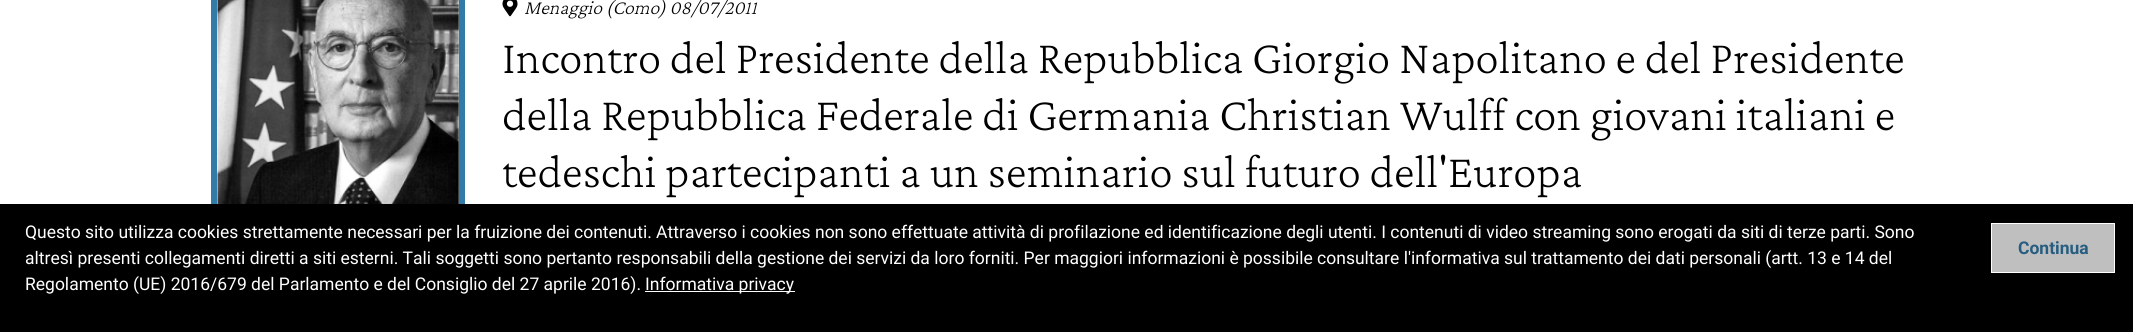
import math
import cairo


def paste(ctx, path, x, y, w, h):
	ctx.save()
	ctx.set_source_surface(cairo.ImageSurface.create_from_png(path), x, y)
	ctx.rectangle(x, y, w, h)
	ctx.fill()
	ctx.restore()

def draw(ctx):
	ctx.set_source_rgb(1, 1, 1)
	ctx.paint()
	ctx.rectangle(214, -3, 248, 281)
	ctx.set_source_rgb(0.196, 0.478, 0.655)
	ctx.set_line_width(6)
	ctx.stroke()
	paste(ctx, 'media/1.png', 217, 0, 242, 204)
	paste(ctx, 'media/2.png', 502, 0, 16, 17)
	ctx.select_font_face('Crimson Pro ExtraLight', cairo.FONT_SLANT_ITALIC)
	ctx.set_font_size(20)
	ctx.set_source_rgb(0, 0, 0)
	ctx.move_to(524, 14)
	ctx.show_text('Menaggio (Como) 08/07/2011')
	ctx.select_font_face('Crimson Pro ExtraLight')
	ctx.set_font_size(47.5)
	for x, y, s in [
		(502, 73, 'Incontro del Presidente della Repubblica Giorgio Napolitano e del Presidente'),
		(502, 130, 'della Repubblica Federale di Germania Christian Wulff con giovani italiani e'),
		(502, 187, 'tedeschi partecipanti a un seminario sul futuro dell\'Europa'),
	]:
		ctx.move_to(x, y)
		ctx.show_text(s)
	ctx.rectangle(0, 204, 2133, 128)
	ctx.fill()
	ctx.select_font_face('Roboto')
	ctx.set_font_size(17.5)
	ctx.set_source_rgb(1, 1, 1)
	for x, y, s in [
		(25, 238, 'Questo sito utilizza cookies strettamente necessari per la fruizione dei contenuti. Attraverso i cookies non sono effettuate attività di profilazione ed identificazione degli utenti. I contenuti di video streaming sono erogati da siti di terze parti. Sono'),
		(25, 264, 'altresì presenti collegamenti diretti a siti esterni. Tali soggetti sono pertanto responsabili della gestione dei servizi da loro forniti. Per maggiori informazioni è possibile consultare l\'informativa sul trattamento dei dati personali (artt. 13 e 14 del'),
		(25, 290, 'Regolamento (UE) 2016/679 del Parlamento e del Consiglio del 27 aprile 2016).'),
	]:
		ctx.move_to(x, y)
		ctx.show_text(s)
	ctx.rectangle(645, 291, 150, 1)
	ctx.fill()
	ctx.move_to(645, 290)
	ctx.show_text('Informativa privacy')
	ctx.set_source_rgb(0.749, 0.749, 0.749)
	ctx.rectangle(1991.5, 223.5, 123, 49)
	ctx.fill_preserve()
	ctx.set_source_rgb(1, 1, 1)
	ctx.set_line_width(1)
	ctx.stroke()
	ctx.select_font_face('Roboto', cairo.FONT_SLANT_NORMAL, cairo.FONT_WEIGHT_BOLD)
	ctx.set_source_rgb(0.149, 0.365, 0.502)
	ctx.move_to(2018, 254)
	ctx.show_text('Continua')


surface = cairo.ImageSurface(cairo.FORMAT_RGB24, 2133, 332)
ctx = cairo.Context(surface)
options = cairo.FontOptions()
options.set_hint_metrics(cairo.HINT_METRICS_OFF)
options.set_hint_style(cairo.HINT_STYLE_NONE)
ctx.set_font_options(options)
ctx.set_miter_limit(4)
draw(ctx)
surface.write_to_png('image.png')
